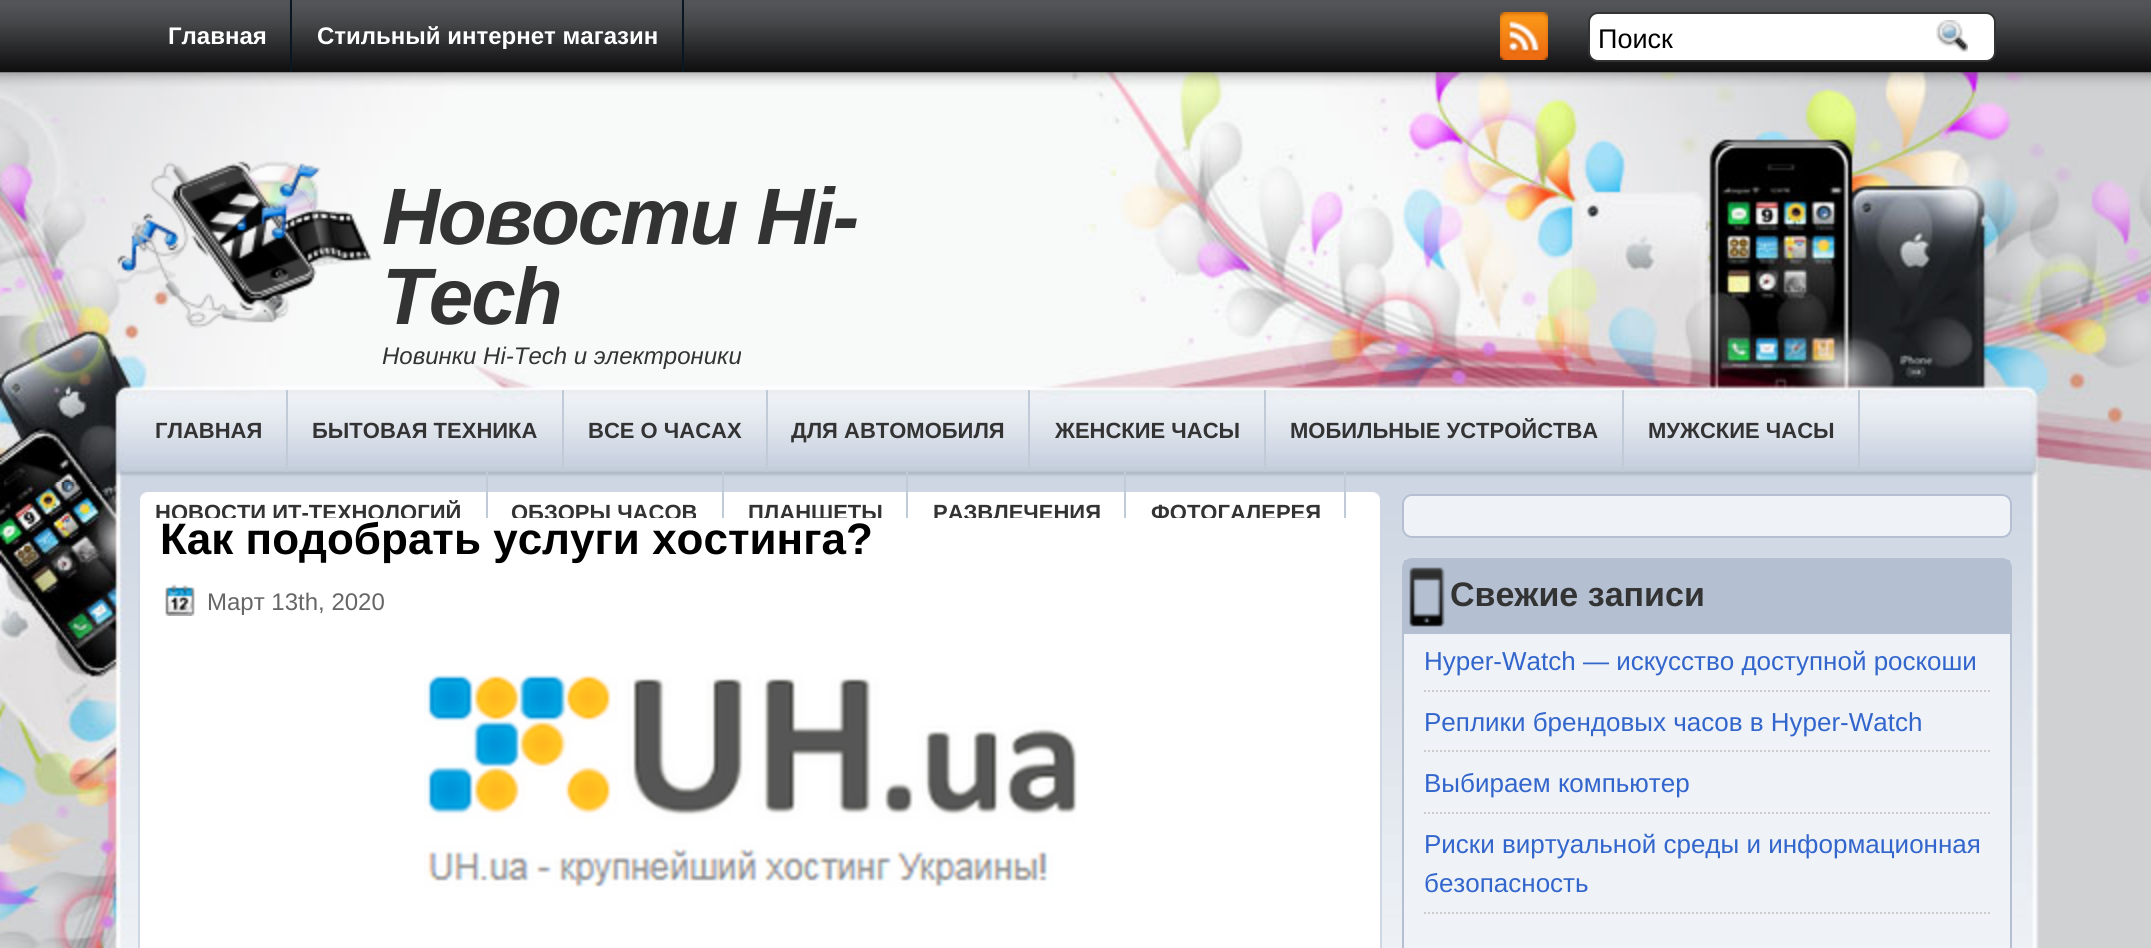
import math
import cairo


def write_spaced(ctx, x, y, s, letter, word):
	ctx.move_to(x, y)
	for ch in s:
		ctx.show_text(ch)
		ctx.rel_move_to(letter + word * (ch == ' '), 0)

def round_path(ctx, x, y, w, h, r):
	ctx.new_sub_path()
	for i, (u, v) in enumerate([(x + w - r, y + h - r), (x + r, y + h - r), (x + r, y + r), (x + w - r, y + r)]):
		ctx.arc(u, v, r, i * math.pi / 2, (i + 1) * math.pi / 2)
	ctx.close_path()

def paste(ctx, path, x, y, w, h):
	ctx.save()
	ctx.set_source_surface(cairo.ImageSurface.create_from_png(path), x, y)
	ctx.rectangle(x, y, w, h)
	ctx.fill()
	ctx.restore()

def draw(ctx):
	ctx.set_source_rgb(0.816, 0.82, 0.827)
	ctx.paint()
	paste(ctx, 'media/1.png', 0, 482, 2039, 466)
	paste(ctx, 'media/2.png', 0, 0, 2151, 482)
	paste(ctx, 'media/3.png', 0, 64, 2151, 8)
	ctx.set_source_rgb(0.039, 0.086, 0.141)
	ctx.rectangle(290, 0, 2, 72)
	ctx.fill()
	ctx.select_font_face('Liberation Sans', cairo.FONT_SLANT_NORMAL, cairo.FONT_WEIGHT_BOLD)
	ctx.set_font_size(24)
	ctx.set_source_rgb(1, 1, 1)
	ctx.move_to(168, 44)
	ctx.show_text('Главная')
	ctx.set_source_rgb(0.039, 0.086, 0.141)
	ctx.rectangle(682, 0, 2, 72)
	ctx.fill()
	ctx.set_source_rgb(1, 1, 1)
	ctx.move_to(317, 44)
	ctx.show_text('Стильный интернет магазин')
	paste(ctx, 'media/4.png', 1500, 12, 48, 48)
	round_path(ctx, 1589, 13, 406, 48, 9)
	ctx.fill_preserve()
	ctx.set_source_rgb(0.2, 0.2, 0.2)
	ctx.stroke()
	ctx.select_font_face('Liberation Sans')
	ctx.set_font_size(27)
	ctx.set_source_rgb(0, 0, 0)
	ctx.move_to(1598, 48)
	ctx.show_text('Поиск')
	paste(ctx, 'media/5.png', 1936, 20, 32, 32)
	paste(ctx, 'media/6.png', 116, 161, 256, 168)
	ctx.select_font_face('Liberation Sans', cairo.FONT_SLANT_ITALIC, cairo.FONT_WEIGHT_BOLD)
	ctx.set_font_size(80)
	ctx.set_source_rgb(0.2, 0.2, 0.2)
	write_spaced(ctx, 382, 244, 'Новости Hi-', -2, 0)
	write_spaced(ctx, 382, 324, 'Tech', -2, 0)
	ctx.select_font_face('Liberation Sans', cairo.FONT_SLANT_ITALIC)
	ctx.set_font_size(24)
	ctx.move_to(382, 364)
	ctx.show_text('Новинки Hi-Tech и электроники')
	ctx.set_source_rgb(0.757, 0.796, 0.843)
	ctx.rectangle(286, 390, 2, 82)
	ctx.fill()
	ctx.select_font_face('Liberation Sans', cairo.FONT_SLANT_NORMAL, cairo.FONT_WEIGHT_BOLD)
	ctx.set_font_size(22)
	ctx.set_source_rgb(0.2, 0.2, 0.2)
	ctx.move_to(155, 438)
	ctx.show_text('ГЛАВНАЯ')
	ctx.set_source_rgb(0.757, 0.796, 0.843)
	ctx.rectangle(562, 390, 2, 82)
	ctx.fill()
	ctx.set_source_rgb(0.2, 0.2, 0.2)
	ctx.move_to(312, 438)
	ctx.show_text('БЫТОВАЯ ТЕХНИКА')
	ctx.set_source_rgb(0.757, 0.796, 0.843)
	ctx.rectangle(766, 390, 2, 82)
	ctx.fill()
	ctx.set_source_rgb(0.2, 0.2, 0.2)
	ctx.move_to(588, 438)
	ctx.show_text('ВСЕ О ЧАСАХ')
	ctx.set_source_rgb(0.757, 0.796, 0.843)
	ctx.rectangle(1028, 390, 2, 82)
	ctx.fill()
	ctx.set_source_rgb(0.2, 0.2, 0.2)
	ctx.move_to(791, 438)
	ctx.show_text('ДЛЯ АВТОМОБИЛЯ')
	ctx.set_source_rgb(0.757, 0.796, 0.843)
	ctx.rectangle(1264, 390, 2, 82)
	ctx.fill()
	ctx.set_source_rgb(0.2, 0.2, 0.2)
	ctx.move_to(1055, 438)
	ctx.show_text('ЖЕНСКИЕ ЧАСЫ')
	ctx.set_source_rgb(0.757, 0.796, 0.843)
	ctx.rectangle(1622, 390, 2, 82)
	ctx.fill()
	ctx.set_source_rgb(0.2, 0.2, 0.2)
	ctx.move_to(1290, 438)
	ctx.show_text('МОБИЛЬНЫЕ УСТРОЙСТВА')
	ctx.set_source_rgb(0.757, 0.796, 0.843)
	ctx.rectangle(1858, 390, 2, 82)
	ctx.fill()
	ctx.set_source_rgb(0.2, 0.2, 0.2)
	ctx.move_to(1648, 438)
	ctx.show_text('МУЖСКИЕ ЧАСЫ')
	ctx.set_source_rgb(1, 1, 1)
	round_path(ctx, 139, 491, 1242, 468, 9)
	ctx.fill_preserve()
	ctx.set_source_rgb(0.812, 0.843, 0.894)
	ctx.stroke()
	ctx.set_source_rgb(0.757, 0.796, 0.843)
	ctx.rectangle(486, 472, 2, 46)
	ctx.fill()
	ctx.save()
	ctx.rectangle(132, 390, 1890, 128)
	ctx.clip()
	ctx.set_source_rgb(0.2, 0.2, 0.2)
	ctx.move_to(155, 520)
	ctx.show_text('НОВОСТИ ИТ-ТЕХНОЛОГИЙ')
	ctx.restore()
	ctx.rectangle(722, 472, 2, 46)
	ctx.fill()
	ctx.save()
	ctx.rectangle(132, 390, 1890, 128)
	ctx.clip()
	ctx.set_source_rgb(0.2, 0.2, 0.2)
	ctx.move_to(511, 520)
	ctx.show_text('ОБЗОРЫ ЧАСОВ')
	ctx.restore()
	ctx.rectangle(906, 472, 2, 46)
	ctx.fill()
	ctx.save()
	ctx.rectangle(132, 390, 1890, 128)
	ctx.clip()
	ctx.set_source_rgb(0.2, 0.2, 0.2)
	ctx.move_to(748, 520)
	ctx.show_text('ПЛАНШЕТЫ')
	ctx.restore()
	ctx.rectangle(1124, 472, 2, 46)
	ctx.fill()
	ctx.save()
	ctx.rectangle(132, 390, 1890, 128)
	ctx.clip()
	ctx.set_source_rgb(0.2, 0.2, 0.2)
	ctx.move_to(933, 520)
	ctx.show_text('РАЗВЛЕЧЕНИЯ')
	ctx.restore()
	ctx.rectangle(1344, 472, 2, 46)
	ctx.fill()
	ctx.save()
	ctx.rectangle(132, 390, 1890, 128)
	ctx.clip()
	ctx.set_source_rgb(0.2, 0.2, 0.2)
	ctx.move_to(1151, 520)
	ctx.show_text('ФОТОГАЛЕРЕЯ')
	ctx.restore()
	ctx.set_font_size(44)
	ctx.set_source_rgb(0, 0, 0)
	ctx.move_to(160, 554)
	ctx.show_text('Как подобрать услуги хостинга?')
	paste(ctx, 'media/7.png', 165, 584, 30, 32)
	ctx.select_font_face('Liberation Sans')
	ctx.set_font_size(24)
	ctx.set_source_rgb(0.4, 0.4, 0.4)
	ctx.move_to(207, 610)
	ctx.show_text('Март 13th, 2020')
	paste(ctx, 'media/8.png', 424, 675, 653, 212)
	ctx.set_source_rgb(0.937, 0.953, 0.969)
	round_path(ctx, 1403, 495, 608, 42, 9)
	ctx.fill_preserve()
	ctx.set_source_rgb(0.706, 0.753, 0.824)
	ctx.stroke()
	ctx.set_source_rgb(0.937, 0.953, 0.969)
	round_path(ctx, 1403, 559, 608, 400, 9)
	ctx.fill_preserve()
	ctx.set_source_rgb(0.706, 0.753, 0.824)
	ctx.stroke()
	ctx.rectangle(1404, 560, 606, 74)
	ctx.fill()
	paste(ctx, 'media/9.png', 1409, 567, 36, 60)
	ctx.select_font_face('Liberation Sans', cairo.FONT_SLANT_NORMAL, cairo.FONT_WEIGHT_BOLD)
	ctx.set_font_size(34)
	ctx.set_source_rgb(0.2, 0.2, 0.2)
	ctx.move_to(1450, 606)
	ctx.show_text('Свежие записи')
	ctx.new_path()
	ctx.move_to(1424, 691)
	ctx.line_to(1990, 691)
	ctx.set_source_rgb(0.8, 0.8, 0.8)
	ctx.set_dash([2, 2])
	ctx.stroke()
	ctx.select_font_face('Liberation Sans')
	ctx.set_font_size(26)
	ctx.set_source_rgb(0.2, 0.4, 0.8)
	ctx.move_to(1424, 670)
	ctx.show_text('Hyper-Watch — искусство доступной роскоши')
	ctx.new_path()
	ctx.move_to(1424, 751)
	ctx.line_to(1990, 751)
	ctx.set_source_rgb(0.8, 0.8, 0.8)
	ctx.stroke()
	ctx.set_source_rgb(0.2, 0.4, 0.8)
	ctx.move_to(1424, 731)
	ctx.show_text('Реплики брендовых часов в Hyper-Watch')
	ctx.new_path()
	ctx.move_to(1424, 813)
	ctx.line_to(1990, 813)
	ctx.set_source_rgb(0.8, 0.8, 0.8)
	ctx.stroke()
	ctx.set_source_rgb(0.2, 0.4, 0.8)
	ctx.move_to(1424, 792)
	ctx.show_text('Выбираем компьютер')
	ctx.new_path()
	ctx.move_to(1424, 913)
	ctx.line_to(1990, 913)
	ctx.set_source_rgb(0.8, 0.8, 0.8)
	ctx.stroke()
	ctx.set_source_rgb(0.2, 0.4, 0.8)
	ctx.move_to(1424, 853)
	ctx.show_text('Риски виртуальной среды и информационная')
	ctx.move_to(1424, 892)
	ctx.show_text('безопасность')


surface = cairo.ImageSurface(cairo.FORMAT_RGB24, 2151, 948)
ctx = cairo.Context(surface)
options = cairo.FontOptions()
options.set_hint_metrics(cairo.HINT_METRICS_OFF)
options.set_hint_style(cairo.HINT_STYLE_NONE)
ctx.set_font_options(options)
ctx.set_miter_limit(4)
draw(ctx)
surface.write_to_png('image.png')
